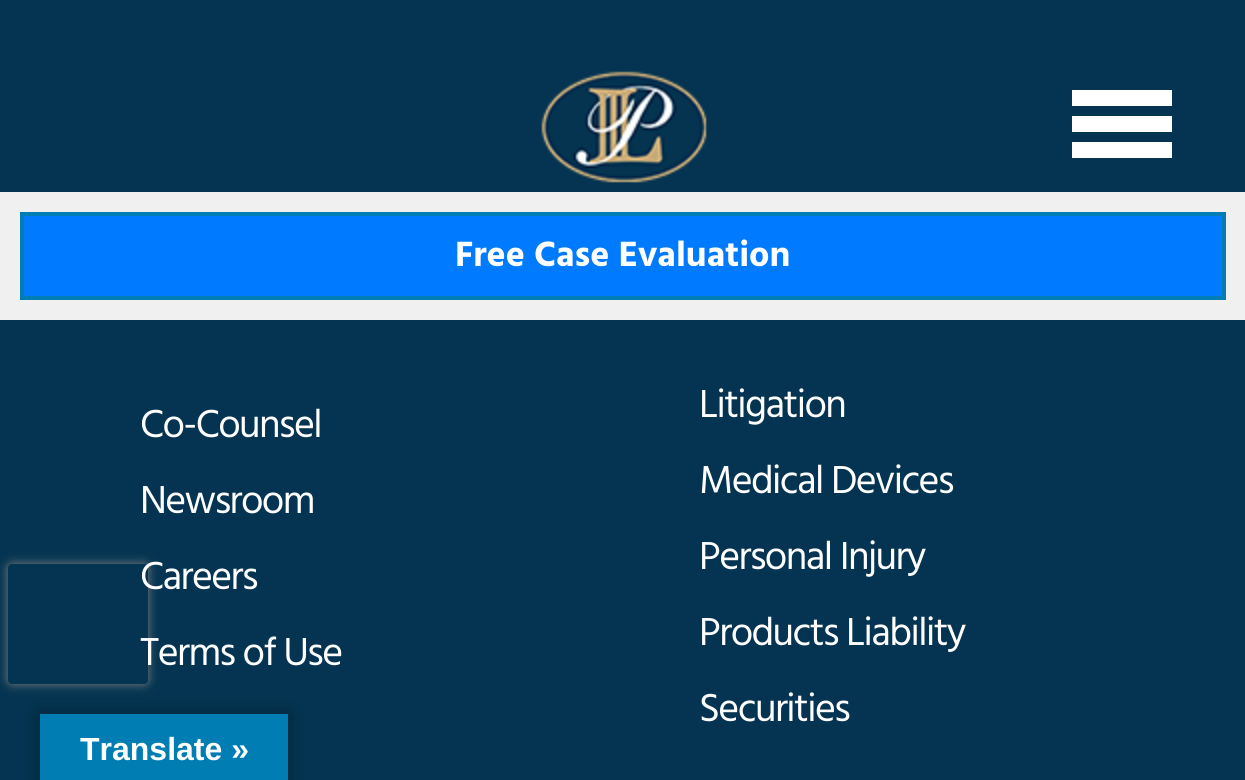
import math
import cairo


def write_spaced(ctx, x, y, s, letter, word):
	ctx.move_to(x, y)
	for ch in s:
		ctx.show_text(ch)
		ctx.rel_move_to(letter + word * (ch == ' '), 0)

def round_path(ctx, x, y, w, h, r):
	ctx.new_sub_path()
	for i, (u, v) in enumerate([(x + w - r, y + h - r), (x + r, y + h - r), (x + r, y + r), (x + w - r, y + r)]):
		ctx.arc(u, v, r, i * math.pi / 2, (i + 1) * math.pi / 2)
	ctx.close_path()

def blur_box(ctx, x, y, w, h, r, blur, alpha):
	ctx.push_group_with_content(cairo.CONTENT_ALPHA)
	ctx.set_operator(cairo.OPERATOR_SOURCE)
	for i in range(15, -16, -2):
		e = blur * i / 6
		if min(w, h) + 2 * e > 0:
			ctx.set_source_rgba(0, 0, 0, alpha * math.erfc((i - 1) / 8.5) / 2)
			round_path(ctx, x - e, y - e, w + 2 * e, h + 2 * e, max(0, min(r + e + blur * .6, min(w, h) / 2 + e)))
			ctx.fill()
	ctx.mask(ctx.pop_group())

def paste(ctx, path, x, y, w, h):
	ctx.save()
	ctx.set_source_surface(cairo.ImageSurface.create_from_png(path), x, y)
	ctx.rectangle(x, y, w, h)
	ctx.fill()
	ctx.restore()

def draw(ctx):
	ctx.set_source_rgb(0.016, 0.204, 0.318)
	ctx.paint()
	paste(ctx, 'media/1.png', 541, 71, 166, 112)
	ctx.set_source_rgb(1, 1, 1)
	ctx.rectangle(1072, 90, 100, 16)
	ctx.rectangle(1072, 116, 100, 16)
	ctx.rectangle(1072, 142, 100, 16)
	ctx.fill()
	ctx.set_source_rgb(0.941, 0.941, 0.941)
	ctx.rectangle(0, 192, 1245, 128)
	ctx.fill()
	ctx.set_source_rgb(0, 0.482, 1)
	ctx.rectangle(22, 214, 1202, 84)
	ctx.fill_preserve()
	ctx.set_source_rgb(0, 0.49, 0.702)
	ctx.set_line_width(4)
	ctx.stroke()
	ctx.select_font_face('Hind Madurai', cairo.FONT_SLANT_NORMAL, cairo.FONT_WEIGHT_BOLD)
	ctx.set_font_size(36)
	ctx.set_source_rgb(1, 1, 1)
	ctx.move_to(455, 266)
	ctx.show_text('Free Case Evaluation')
	ctx.save()
	ctx.set_fill_rule(cairo.FILL_RULE_EVEN_ODD)
	ctx.new_path()
	ctx.move_to(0, 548)
	ctx.line_to(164, 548)
	ctx.line_to(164, 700)
	ctx.line_to(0, 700)
	ctx.close_path()
	ctx.move_to(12, 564)
	ctx.line_to(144, 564)
	ctx.curve_to(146, 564, 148, 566, 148, 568)
	ctx.line_to(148, 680)
	ctx.curve_to(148, 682, 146, 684, 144, 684)
	ctx.line_to(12, 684)
	ctx.curve_to(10, 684, 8, 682, 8, 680)
	ctx.line_to(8, 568)
	ctx.curve_to(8, 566, 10, 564, 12, 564)
	ctx.close_path()
	ctx.clip()
	ctx.set_source_rgb(0.502, 0.502, 0.502)
	blur_box(ctx, 8, 564, 140, 120, 4, 5, 1)
	ctx.restore()
	ctx.select_font_face('Hind Madurai')
	ctx.set_font_size(40)
	for x, y, s in [
		(140, 437, 'Co-Counsel'),
		(140, 513, 'Newsroom'),
		(140, 589, 'Careers'),
		(140, 665, 'Terms of Use'),
		(699, 417, 'Litigation'),
		(699, 493, 'Medical Devices'),
		(699, 569, 'Personal Injury'),
		(699, 645, 'Products Liability'),
		(699, 721, 'Securities'),
	]:
		write_spaced(ctx, x, y, s, -1.6, 0)
	ctx.set_source_rgb(0, 0, 0)
	blur_box(ctx, 40, 714, 248, 66, 0, 9, 0.3)
	ctx.set_source_rgb(0, 0.49, 0.702)
	ctx.rectangle(40, 714, 248, 66)
	ctx.fill()
	ctx.select_font_face('Liberation Sans', cairo.FONT_SLANT_NORMAL, cairo.FONT_WEIGHT_BOLD)
	ctx.set_font_size(32)
	ctx.set_source_rgb(1, 1, 1)
	ctx.move_to(80, 760)
	ctx.show_text('Translate »')


surface = cairo.ImageSurface(cairo.FORMAT_RGB24, 1245, 780)
ctx = cairo.Context(surface)
options = cairo.FontOptions()
options.set_hint_metrics(cairo.HINT_METRICS_OFF)
options.set_hint_style(cairo.HINT_STYLE_NONE)
ctx.set_font_options(options)
ctx.set_miter_limit(4)
draw(ctx)
surface.write_to_png('image.png')
